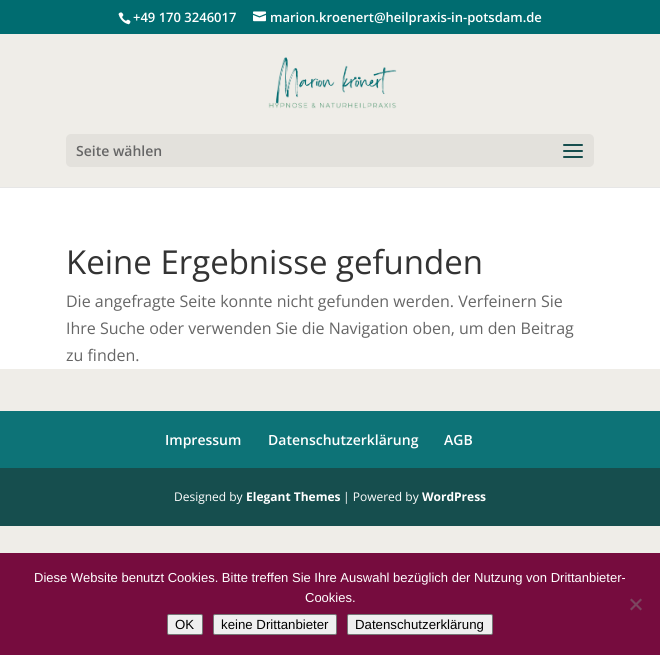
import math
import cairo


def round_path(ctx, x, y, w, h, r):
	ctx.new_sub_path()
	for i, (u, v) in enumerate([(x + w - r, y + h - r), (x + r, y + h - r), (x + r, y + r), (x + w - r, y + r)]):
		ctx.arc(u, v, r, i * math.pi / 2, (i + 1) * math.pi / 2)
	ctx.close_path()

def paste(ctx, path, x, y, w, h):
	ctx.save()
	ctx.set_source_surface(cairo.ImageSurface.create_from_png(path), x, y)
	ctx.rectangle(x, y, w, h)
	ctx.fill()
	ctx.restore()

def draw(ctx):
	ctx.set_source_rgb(0.937, 0.929, 0.91)
	ctx.paint()
	ctx.set_source_rgb(0, 0.424, 0.439)
	ctx.rectangle(0, 0, 660, 34)
	ctx.fill()
	paste(ctx, 'media/1.png', 118, 12, 13, 13)
	ctx.select_font_face('Open Sans SemiBold')
	ctx.set_font_size(13)
	ctx.set_source_rgb(1, 1, 1)
	ctx.move_to(133, 22)
	ctx.show_text('+49 170 3246017')
	paste(ctx, 'media/2.png', 253, 11, 13, 11)
	ctx.move_to(270, 22)
	ctx.show_text('marion.kroenert@heilpraxis-in-potsdam.de')
	ctx.set_source_rgb(0.902, 0.902, 0.902)
	ctx.rectangle(0, 187, 660, 1)
	ctx.fill()
	paste(ctx, 'media/3.png', 268, 57, 129, 52)
	ctx.set_source_rgb(0.89, 0.882, 0.863)
	round_path(ctx, 66, 134, 528, 33, 5)
	ctx.fill()
	ctx.set_font_size(14)
	ctx.set_source_rgb(0.4, 0.4, 0.4)
	ctx.move_to(76, 156)
	ctx.show_text('Seite wählen')
	paste(ctx, 'media/4.png', 563, 144, 20, 14)
	ctx.set_source_rgb(1, 1, 1)
	ctx.rectangle(0, 188, 660, 181)
	ctx.fill()
	ctx.select_font_face('Open Sans')
	ctx.set_font_size(33)
	ctx.set_source_rgb(0.2, 0.2, 0.2)
	ctx.move_to(66, 274)
	ctx.show_text('Keine Ergebnisse gefunden')
	ctx.set_font_size(16)
	ctx.set_source_rgb(0.4, 0.4, 0.4)
	for x, y, s in [
		(66, 307, 'Die angefragte Seite konnte nicht gefunden werden. Verfeinern Sie'),
		(66, 334, 'Ihre Suche oder verwenden Sie die Navigation oben, um den Beitrag'),
		(66, 361, 'zu finden.'),
	]:
		ctx.move_to(x, y)
		ctx.show_text(s)
	ctx.set_source_rgb(0.051, 0.451, 0.467)
	ctx.rectangle(0, 411, 660, 57)
	ctx.fill()
	ctx.select_font_face('Open Sans SemiBold')
	ctx.set_font_size(14)
	ctx.set_source_rgb(1, 1, 1)
	for x, y, s in [
		(165, 445, 'Impressum'),
		(268, 445, 'Datenschutzerklärung'),
		(444, 445, 'AGB'),
	]:
		ctx.move_to(x, y)
		ctx.show_text(s)
	ctx.set_source_rgb(0.086, 0.306, 0.306)
	ctx.rectangle(0, 468, 660, 58)
	ctx.fill()
	ctx.select_font_face('Open Sans')
	ctx.set_font_size(12)
	ctx.set_source_rgb(1, 1, 1)
	ctx.move_to(174, 501)
	ctx.show_text('Designed by')
	ctx.select_font_face('Open Sans', cairo.FONT_SLANT_NORMAL, cairo.FONT_WEIGHT_BOLD)
	ctx.move_to(246, 501)
	ctx.show_text('Elegant Themes')
	ctx.select_font_face('Open Sans')
	ctx.move_to(343, 501)
	ctx.show_text('| Powered by')
	ctx.select_font_face('Open Sans', cairo.FONT_SLANT_NORMAL, cairo.FONT_WEIGHT_BOLD)
	ctx.move_to(422, 501)
	ctx.show_text('WordPress')
	ctx.set_source_rgb(0.463, 0.047, 0.243)
	ctx.rectangle(0, 553, 660, 102)
	ctx.fill()
	ctx.select_font_face('Liberation Sans')
	ctx.set_font_size(13)
	ctx.set_source_rgb(1, 1, 1)
	ctx.move_to(34, 582)
	ctx.show_text('Diese Website benutzt Cookies. Bitte treffen Sie Ihre Auswahl bezüglich der Nutzung von Drittanbieter-')
	ctx.move_to(305, 602)
	ctx.show_text('Cookies.')
	ctx.set_source_rgb(0.482, 0.275, 0.373)
	ctx.new_path()
	ctx.move_to(640.5, 598.5)
	ctx.line_to(642, 600)
	ctx.line_to(631.5, 610.5)
	ctx.line_to(630, 609)
	ctx.close_path()
	ctx.fill()
	ctx.new_path()
	ctx.move_to(630, 600)
	ctx.line_to(631.5, 598.5)
	ctx.line_to(642, 609)
	ctx.line_to(640.5, 610.5)
	ctx.close_path()
	ctx.fill()
	ctx.set_source_rgb(0.937, 0.937, 0.937)
	round_path(ctx, 167.5, 614.5, 35, 20, 1.5)
	ctx.fill_preserve()
	ctx.set_source_rgb(0.463, 0.463, 0.463)
	ctx.set_line_width(1)
	ctx.stroke()
	ctx.set_font_size(13.25)
	ctx.set_source_rgb(0, 0, 0)
	ctx.move_to(175, 629)
	ctx.show_text('OK')
	ctx.set_source_rgb(0.937, 0.937, 0.937)
	round_path(ctx, 213.5, 614.5, 123, 20, 1.5)
	ctx.fill_preserve()
	ctx.set_source_rgb(0.463, 0.463, 0.463)
	ctx.stroke()
	ctx.set_source_rgb(0, 0, 0)
	ctx.move_to(221, 629)
	ctx.show_text('keine Drittanbieter')
	ctx.set_source_rgb(0.937, 0.937, 0.937)
	round_path(ctx, 347.5, 614.5, 145, 20, 1.5)
	ctx.fill_preserve()
	ctx.set_source_rgb(0.463, 0.463, 0.463)
	ctx.stroke()
	ctx.set_source_rgb(0, 0, 0)
	ctx.move_to(355, 629)
	ctx.show_text('Datenschutzerklärung')


surface = cairo.ImageSurface(cairo.FORMAT_RGB24, 660, 655)
ctx = cairo.Context(surface)
options = cairo.FontOptions()
options.set_hint_metrics(cairo.HINT_METRICS_OFF)
options.set_hint_style(cairo.HINT_STYLE_NONE)
ctx.set_font_options(options)
ctx.set_miter_limit(4)
draw(ctx)
surface.write_to_png('image.png')
